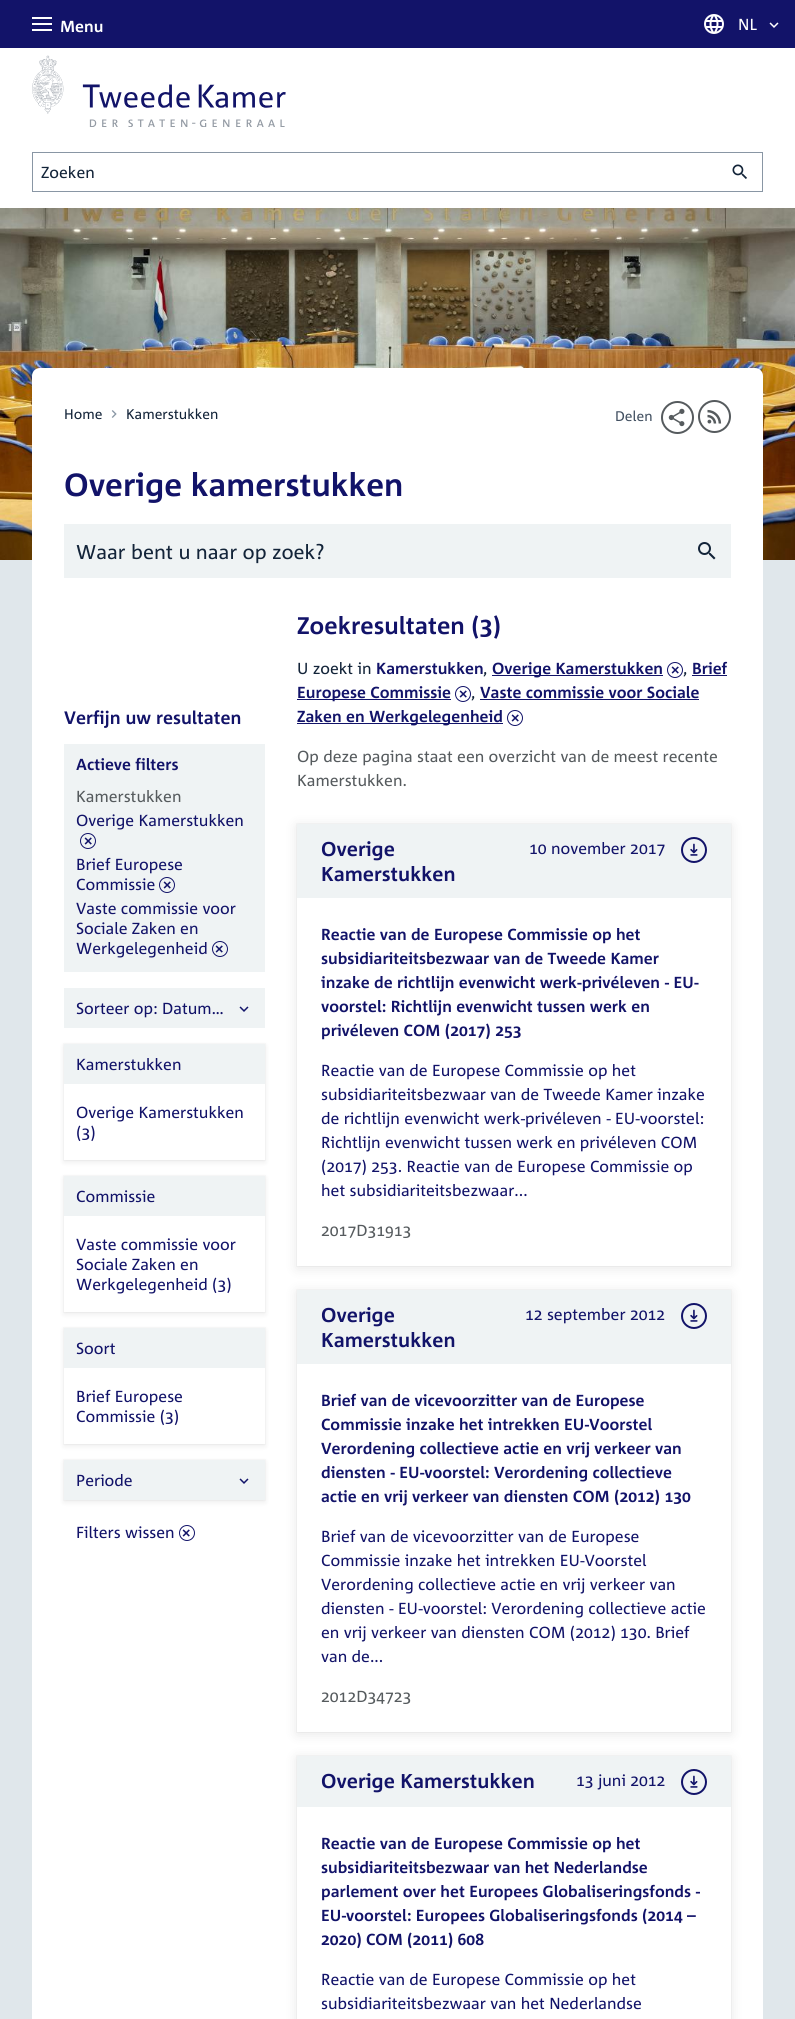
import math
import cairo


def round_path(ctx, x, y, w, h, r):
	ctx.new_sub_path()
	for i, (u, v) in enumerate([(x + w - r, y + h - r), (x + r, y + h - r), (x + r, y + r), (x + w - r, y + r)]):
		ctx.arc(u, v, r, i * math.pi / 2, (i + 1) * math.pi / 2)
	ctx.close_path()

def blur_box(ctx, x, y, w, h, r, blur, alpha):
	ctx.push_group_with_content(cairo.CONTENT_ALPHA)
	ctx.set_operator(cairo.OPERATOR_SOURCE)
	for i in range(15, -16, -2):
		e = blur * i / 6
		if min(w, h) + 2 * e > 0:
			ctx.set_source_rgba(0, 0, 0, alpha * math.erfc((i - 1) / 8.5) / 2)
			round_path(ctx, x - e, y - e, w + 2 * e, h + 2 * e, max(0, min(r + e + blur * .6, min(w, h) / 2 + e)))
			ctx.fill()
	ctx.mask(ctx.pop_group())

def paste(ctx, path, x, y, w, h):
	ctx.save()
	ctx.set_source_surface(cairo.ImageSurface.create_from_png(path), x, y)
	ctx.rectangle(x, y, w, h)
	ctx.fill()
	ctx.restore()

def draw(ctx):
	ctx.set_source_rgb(1, 1, 1)
	ctx.paint()
	ctx.set_source_rgb(0.071, 0.078, 0.412)
	ctx.rectangle(0, 0, 795, 48)
	ctx.fill()
	ctx.set_source_rgb(1, 1, 1)
	ctx.rectangle(32, 17, 20, 2)
	ctx.rectangle(32, 23, 20, 2)
	ctx.rectangle(32, 29, 20, 2)
	ctx.fill()
	ctx.select_font_face('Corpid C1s', cairo.FONT_SLANT_NORMAL, cairo.FONT_WEIGHT_BOLD)
	ctx.set_font_size(16)
	ctx.move_to(60, 32)
	ctx.show_text('Menu')
	paste(ctx, 'media/1.png', 704, 14, 20, 20)
	ctx.select_font_face('Corpid C1s')
	ctx.move_to(738, 30)
	ctx.show_text('NL')
	paste(ctx, 'media/2.png', 769, 22, 10, 6)
	paste(ctx, 'media/3.png', 32, 55, 254, 72)
	ctx.set_source_rgb(0.537, 0.588, 0.643)
	ctx.rectangle(32, 152, 731, 1)
	ctx.rectangle(32, 191, 686, 1)
	ctx.rectangle(32, 152, 1, 40)
	ctx.fill()
	ctx.set_source_rgb(0.075, 0.141, 0.224)
	ctx.move_to(41, 178)
	ctx.show_text('Zoeken')
	ctx.set_source_rgb(0.537, 0.588, 0.643)
	ctx.rectangle(762, 152, 1, 40)
	ctx.fill()
	ctx.rectangle(718, 191, 45, 1)
	ctx.fill()
	paste(ctx, 'media/4.png', 732, 164, 15, 15)
	paste(ctx, 'media/5.png', 0, 208, 795, 352)
	ctx.set_source_rgb(1, 1, 1)
	ctx.new_path()
	ctx.move_to(40, 368)
	ctx.line_to(755, 368)
	ctx.curve_to(759.5, 368, 763, 371.5, 763, 376)
	ctx.line_to(763, 466)
	ctx.line_to(32, 466)
	ctx.line_to(32, 376)
	ctx.curve_to(32, 371.5, 35.5, 368, 40, 368)
	ctx.close_path()
	ctx.fill()
	ctx.set_font_size(14)
	ctx.set_source_rgb(0.075, 0.141, 0.224)
	ctx.move_to(64, 419)
	ctx.show_text('Home')
	paste(ctx, 'media/6.png', 111, 410, 6, 8)
	ctx.move_to(126, 419)
	ctx.show_text('Kamerstukken')
	ctx.set_source_rgb(0.259, 0.314, 0.38)
	ctx.move_to(615, 421)
	ctx.show_text('Delen')
	ctx.new_path()
	ctx.arc(677.5, 417.5, 15.5, 0, 2 * math.pi)
	ctx.set_source_rgb(0.337, 0.357, 0.369)
	ctx.stroke()
	paste(ctx, 'media/7.png', 668, 408, 17, 19)
	ctx.arc(714.5, 416.5, 15.5, 0, 2 * math.pi)
	ctx.stroke()
	paste(ctx, 'media/8.png', 707, 409, 15, 15)
	ctx.set_source_rgb(0.878, 0.906, 0.918)
	ctx.rectangle(0, 560, 795, 1459)
	ctx.fill()
	ctx.set_source_rgb(1, 1, 1)
	ctx.rectangle(32, 466, 731, 1553)
	ctx.fill()
	ctx.select_font_face('Corpid C1s', cairo.FONT_SLANT_NORMAL, cairo.FONT_WEIGHT_BOLD)
	ctx.set_font_size(32)
	ctx.set_source_rgb(0.071, 0.078, 0.412)
	ctx.move_to(64, 496)
	ctx.show_text('Overige kamerstukken')
	ctx.set_source_rgb(0.937, 0.953, 0.957)
	ctx.rectangle(64, 524, 667, 54)
	ctx.fill()
	ctx.select_font_face('Corpid C1s')
	ctx.set_font_size(20)
	ctx.set_source_rgb(0.075, 0.141, 0.224)
	ctx.move_to(76, 559)
	ctx.show_text('Waar bent u naar op zoek?')
	paste(ctx, 'media/9.png', 698, 542, 18, 18)
	ctx.select_font_face('Corpid C1s', cairo.FONT_SLANT_NORMAL, cairo.FONT_WEIGHT_BOLD)
	ctx.set_font_size(18)
	ctx.set_source_rgb(0.071, 0.078, 0.412)
	ctx.move_to(64, 724)
	ctx.show_text('Verfijn uw resultaten')
	ctx.set_font_size(24)
	ctx.move_to(297, 634)
	ctx.show_text('Zoekresultaten (3)')
	ctx.set_font_size(16)
	ctx.move_to(692, 674)
	ctx.show_text('Brief')
	ctx.rectangle(692, 675, 35, 1)
	ctx.fill()
	ctx.rectangle(297, 699, 154, 1)
	ctx.fill()
	ctx.move_to(297, 698)
	ctx.show_text('Europese Commissie')
	ctx.new_path()
	ctx.arc(463, 694, 7.5, 0, 2 * math.pi)
	ctx.set_line_width(1)
	ctx.stroke()
	paste(ctx, 'media/10.png', 459, 690, 8, 8)
	ctx.select_font_face('Corpid C1s')
	ctx.set_source_rgb(0.075, 0.141, 0.224)
	ctx.move_to(297, 674)
	ctx.show_text('U zoekt in')
	ctx.select_font_face('Corpid C1s', cairo.FONT_SLANT_NORMAL, cairo.FONT_WEIGHT_BOLD)
	ctx.set_source_rgb(0.071, 0.078, 0.412)
	ctx.move_to(376, 674)
	ctx.show_text('Kamerstukken')
	ctx.select_font_face('Corpid C1s')
	ctx.set_source_rgb(0.075, 0.141, 0.224)
	ctx.move_to(483, 674)
	ctx.show_text(',')
	ctx.set_source_rgb(0.071, 0.078, 0.412)
	ctx.rectangle(492, 675, 171, 1)
	ctx.fill()
	ctx.select_font_face('Corpid C1s', cairo.FONT_SLANT_NORMAL, cairo.FONT_WEIGHT_BOLD)
	ctx.move_to(492, 674)
	ctx.show_text('Overige Kamerstukken')
	ctx.new_path()
	ctx.arc(675, 670, 7.5, 0, 2 * math.pi)
	ctx.stroke()
	paste(ctx, 'media/10.png', 671, 666, 8, 8)
	ctx.select_font_face('Corpid C1s')
	ctx.set_source_rgb(0.075, 0.141, 0.224)
	ctx.move_to(683, 674)
	ctx.show_text(',')
	ctx.select_font_face('Corpid C1s', cairo.FONT_SLANT_NORMAL, cairo.FONT_WEIGHT_BOLD)
	ctx.set_source_rgb(0.071, 0.078, 0.412)
	ctx.move_to(480, 698)
	ctx.show_text('Vaste commissie voor Sociale')
	ctx.rectangle(480, 699, 219, 1)
	ctx.fill()
	ctx.rectangle(297, 723, 206, 1)
	ctx.fill()
	ctx.move_to(297, 722)
	ctx.show_text('Zaken en Werkgelegenheid')
	ctx.new_path()
	ctx.arc(515, 718, 7.5, 0, 2 * math.pi)
	ctx.stroke()
	paste(ctx, 'media/10.png', 511, 714, 8, 8)
	ctx.select_font_face('Corpid C1s')
	ctx.set_source_rgb(0.075, 0.141, 0.224)
	ctx.move_to(471, 698)
	ctx.show_text(',')
	ctx.set_source_rgb(0.937, 0.953, 0.957)
	ctx.rectangle(64, 744, 201, 228)
	ctx.fill()
	ctx.select_font_face('Corpid C1s', cairo.FONT_SLANT_NORMAL, cairo.FONT_WEIGHT_BOLD)
	ctx.set_source_rgb(0.071, 0.078, 0.412)
	ctx.move_to(76, 770)
	ctx.show_text('Actieve filters')
	ctx.select_font_face('Corpid C1s')
	ctx.set_source_rgb(0.337, 0.357, 0.369)
	ctx.move_to(76, 802)
	ctx.show_text('Kamerstukken')
	ctx.set_source_rgb(0.071, 0.078, 0.412)
	ctx.move_to(76, 826)
	ctx.show_text('Overige Kamerstukken')
	ctx.new_path()
	ctx.arc(88, 841, 7.5, 0, 2 * math.pi)
	ctx.stroke()
	paste(ctx, 'media/11.png', 84, 837, 8, 8)
	ctx.move_to(76, 870)
	ctx.show_text('Brief Europese')
	ctx.move_to(76, 890)
	ctx.show_text('Commissie')
	ctx.new_path()
	ctx.arc(167, 885, 7.5, 0, 2 * math.pi)
	ctx.stroke()
	paste(ctx, 'media/11.png', 163, 881, 8, 8)
	for x, y, s in [
		(76, 914, 'Vaste commissie voor'),
		(76, 934, 'Sociale Zaken en'),
		(76, 954, 'Werkgelegenheid'),
	]:
		ctx.move_to(x, y)
		ctx.show_text(s)
	ctx.new_path()
	ctx.arc(220, 949, 7.5, 0, 2 * math.pi)
	ctx.stroke()
	paste(ctx, 'media/11.png', 215, 945, 8, 8)
	ctx.set_source_rgb(0.937, 0.953, 0.957)
	ctx.rectangle(64, 988, 201, 40)
	ctx.fill()
	ctx.set_source_rgb(0.071, 0.078, 0.412)
	ctx.move_to(76, 1014)
	ctx.show_text('Sorteer op: Datum…')
	paste(ctx, 'media/12.png', 239, 1006, 10, 6)
	ctx.rectangle(63.5, 1043.5, 202, 117)
	ctx.set_source_rgb(0.98, 0.98, 0.98)
	ctx.stroke()
	ctx.save()
	ctx.set_fill_rule(cairo.FILL_RULE_EVEN_ODD)
	ctx.new_path()
	ctx.move_to(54, 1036)
	ctx.line_to(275, 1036)
	ctx.line_to(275, 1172)
	ctx.line_to(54, 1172)
	ctx.close_path()
	ctx.move_to(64, 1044)
	ctx.line_to(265, 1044)
	ctx.line_to(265, 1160)
	ctx.line_to(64, 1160)
	ctx.close_path()
	ctx.clip()
	ctx.set_source_rgb(0, 0, 0)
	blur_box(ctx, 64, 1046, 201, 116, 0, 3, 0.08)
	ctx.restore()
	ctx.set_source_rgb(0.937, 0.953, 0.957)
	ctx.rectangle(64, 1044, 201, 40)
	ctx.fill()
	ctx.set_source_rgb(0.071, 0.078, 0.412)
	for x, y, s in [
		(76, 1070, 'Kamerstukken'),
		(76, 1118, 'Overige Kamerstukken'),
		(76, 1138, '(3)'),
	]:
		ctx.move_to(x, y)
		ctx.show_text(s)
	ctx.rectangle(63.5, 1175.5, 202, 137)
	ctx.set_source_rgb(0.98, 0.98, 0.98)
	ctx.stroke()
	ctx.save()
	ctx.set_fill_rule(cairo.FILL_RULE_EVEN_ODD)
	ctx.new_path()
	ctx.move_to(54, 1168)
	ctx.line_to(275, 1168)
	ctx.line_to(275, 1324)
	ctx.line_to(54, 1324)
	ctx.close_path()
	ctx.move_to(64, 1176)
	ctx.line_to(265, 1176)
	ctx.line_to(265, 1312)
	ctx.line_to(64, 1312)
	ctx.close_path()
	ctx.clip()
	ctx.set_source_rgb(0, 0, 0)
	blur_box(ctx, 64, 1178, 201, 136, 0, 3, 0.08)
	ctx.restore()
	ctx.set_source_rgb(0.937, 0.953, 0.957)
	ctx.rectangle(64, 1176, 201, 40)
	ctx.fill()
	ctx.set_source_rgb(0.071, 0.078, 0.412)
	for x, y, s in [
		(76, 1202, 'Commissie'),
		(76, 1250, 'Vaste commissie voor'),
		(76, 1270, 'Sociale Zaken en'),
		(76, 1290, 'Werkgelegenheid (3)'),
	]:
		ctx.move_to(x, y)
		ctx.show_text(s)
	ctx.rectangle(63.5, 1327.5, 202, 117)
	ctx.set_source_rgb(0.98, 0.98, 0.98)
	ctx.stroke()
	ctx.save()
	ctx.set_fill_rule(cairo.FILL_RULE_EVEN_ODD)
	ctx.new_path()
	ctx.move_to(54, 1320)
	ctx.line_to(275, 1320)
	ctx.line_to(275, 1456)
	ctx.line_to(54, 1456)
	ctx.close_path()
	ctx.move_to(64, 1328)
	ctx.line_to(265, 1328)
	ctx.line_to(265, 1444)
	ctx.line_to(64, 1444)
	ctx.close_path()
	ctx.clip()
	ctx.set_source_rgb(0, 0, 0)
	blur_box(ctx, 64, 1330, 201, 116, 0, 3, 0.08)
	ctx.restore()
	ctx.set_source_rgb(0.937, 0.953, 0.957)
	ctx.rectangle(64, 1328, 201, 40)
	ctx.fill()
	ctx.set_source_rgb(0.071, 0.078, 0.412)
	for x, y, s in [
		(76, 1354, 'Soort'),
		(76, 1402, 'Brief Europese'),
		(76, 1422, 'Commissie (3)'),
	]:
		ctx.move_to(x, y)
		ctx.show_text(s)
	ctx.rectangle(63.5, 1459.5, 202, 41)
	ctx.set_source_rgb(0.98, 0.98, 0.98)
	ctx.stroke()
	ctx.set_source_rgb(0, 0, 0)
	blur_box(ctx, 64, 1462, 201, 40, 0, 3, 0.08)
	ctx.set_source_rgb(0.937, 0.953, 0.957)
	ctx.rectangle(64, 1460, 201, 40)
	ctx.fill()
	ctx.set_source_rgb(0.071, 0.078, 0.412)
	ctx.move_to(76, 1486)
	ctx.show_text('Periode')
	paste(ctx, 'media/12.png', 239, 1478, 10, 6)
	ctx.move_to(76, 1538)
	ctx.show_text('Filters wissen')
	ctx.new_path()
	ctx.arc(187, 1533, 7.5, 0, 2 * math.pi)
	ctx.stroke()
	paste(ctx, 'media/10.png', 182, 1529, 8, 8)
	ctx.set_source_rgb(0.337, 0.357, 0.369)
	ctx.move_to(297, 762)
	ctx.show_text('Op deze pagina staat een overzicht van de meest recente')
	ctx.move_to(297, 786)
	ctx.show_text('Kamerstukken.')
	ctx.rectangle(296.5, 823.5, 435, 443)
	ctx.set_source_rgb(0.98, 0.98, 0.98)
	ctx.stroke()
	ctx.save()
	ctx.set_fill_rule(cairo.FILL_RULE_EVEN_ODD)
	ctx.new_path()
	ctx.move_to(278, 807)
	ctx.line_to(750, 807)
	ctx.line_to(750, 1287)
	ctx.line_to(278, 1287)
	ctx.close_path()
	ctx.move_to(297, 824)
	ctx.line_to(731, 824)
	ctx.line_to(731, 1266)
	ctx.line_to(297, 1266)
	ctx.close_path()
	ctx.clip()
	ctx.set_source_rgb(0, 0, 0)
	blur_box(ctx, 297, 826, 434, 442, 0, 6, 0.1)
	ctx.restore()
	ctx.set_source_rgb(0.937, 0.953, 0.957)
	ctx.rectangle(297, 824, 434, 74)
	ctx.fill()
	ctx.select_font_face('Corpid C1s', cairo.FONT_SLANT_NORMAL, cairo.FONT_WEIGHT_BOLD)
	ctx.set_font_size(20)
	ctx.set_source_rgb(0.071, 0.078, 0.412)
	ctx.move_to(321, 856)
	ctx.show_text('Overige')
	ctx.move_to(321, 881)
	ctx.show_text('Kamerstukken')
	ctx.select_font_face('Corpid C1s')
	ctx.set_font_size(16)
	ctx.move_to(529, 854)
	ctx.show_text('10 november 2017')
	ctx.new_path()
	ctx.arc(694, 850, 12, 0, 2 * math.pi)
	ctx.set_line_width(2)
	ctx.stroke()
	paste(ctx, 'media/13.png', 690, 843, 8, 13)
	ctx.select_font_face('Corpid C1s', cairo.FONT_SLANT_NORMAL, cairo.FONT_WEIGHT_BOLD)
	for x, y, s in [
		(321, 940, 'Reactie van de Europese Commissie op het'),
		(321, 964, 'subsidiariteitsbezwaar van de Tweede Kamer'),
		(321, 988, 'inzake de richtlijn evenwicht werk-privéleven - EU-'),
		(321, 1012, 'voorstel: Richtlijn evenwicht tussen werk en'),
		(321, 1036, 'privéleven COM (2017) 253'),
	]:
		ctx.move_to(x, y)
		ctx.show_text(s)
	ctx.select_font_face('Corpid C1s')
	for x, y, s in [
		(321, 1076, 'Reactie van de Europese Commissie op het'),
		(321, 1100, 'subsidiariteitsbezwaar van de Tweede Kamer inzake'),
		(321, 1124, 'de richtlijn evenwicht werk-privéleven - EU-voorstel:'),
		(321, 1148, 'Richtlijn evenwicht tussen werk en privéleven COM'),
		(321, 1172, '(2017) 253. Reactie van de Europese Commissie op'),
		(321, 1196, 'het subsidiariteitsbezwaar...'),
	]:
		ctx.move_to(x, y)
		ctx.show_text(s)
	ctx.set_source_rgb(0.337, 0.357, 0.369)
	ctx.move_to(321, 1236)
	ctx.show_text('2017D31913')
	ctx.rectangle(296.5, 1289.5, 435, 443)
	ctx.set_source_rgb(0.98, 0.98, 0.98)
	ctx.set_line_width(1)
	ctx.stroke()
	ctx.save()
	ctx.set_fill_rule(cairo.FILL_RULE_EVEN_ODD)
	ctx.new_path()
	ctx.move_to(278, 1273)
	ctx.line_to(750, 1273)
	ctx.line_to(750, 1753)
	ctx.line_to(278, 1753)
	ctx.close_path()
	ctx.move_to(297, 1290)
	ctx.line_to(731, 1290)
	ctx.line_to(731, 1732)
	ctx.line_to(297, 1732)
	ctx.close_path()
	ctx.clip()
	ctx.set_source_rgb(0, 0, 0)
	blur_box(ctx, 297, 1292, 434, 442, 0, 6, 0.1)
	ctx.restore()
	ctx.set_source_rgb(0.937, 0.953, 0.957)
	ctx.rectangle(297, 1290, 434, 74)
	ctx.fill()
	ctx.select_font_face('Corpid C1s', cairo.FONT_SLANT_NORMAL, cairo.FONT_WEIGHT_BOLD)
	ctx.set_font_size(20)
	ctx.set_source_rgb(0.071, 0.078, 0.412)
	ctx.move_to(321, 1322)
	ctx.show_text('Overige')
	ctx.move_to(321, 1347)
	ctx.show_text('Kamerstukken')
	ctx.select_font_face('Corpid C1s')
	ctx.set_font_size(16)
	ctx.move_to(525, 1320)
	ctx.show_text('12 september 2012')
	ctx.new_path()
	ctx.arc(694, 1316, 12, 0, 2 * math.pi)
	ctx.set_line_width(2)
	ctx.stroke()
	paste(ctx, 'media/13.png', 690, 1309, 8, 13)
	ctx.select_font_face('Corpid C1s', cairo.FONT_SLANT_NORMAL, cairo.FONT_WEIGHT_BOLD)
	for x, y, s in [
		(321, 1406, 'Brief van de vicevoorzitter van de Europese'),
		(321, 1430, 'Commissie inzake het intrekken EU-Voorstel'),
		(321, 1454, 'Verordening collectieve actie en vrij verkeer van'),
		(321, 1478, 'diensten - EU-voorstel: Verordening collectieve'),
		(321, 1502, 'actie en vrij verkeer van diensten COM (2012) 130'),
	]:
		ctx.move_to(x, y)
		ctx.show_text(s)
	ctx.select_font_face('Corpid C1s')
	for x, y, s in [
		(321, 1542, 'Brief van de vicevoorzitter van de Europese'),
		(321, 1566, 'Commissie inzake het intrekken EU-Voorstel'),
		(321, 1590, 'Verordening collectieve actie en vrij verkeer van'),
		(321, 1614, 'diensten - EU-voorstel: Verordening collectieve actie'),
		(321, 1638, 'en vrij verkeer van diensten COM (2012) 130. Brief'),
		(321, 1662, 'van de...'),
	]:
		ctx.move_to(x, y)
		ctx.show_text(s)
	ctx.set_source_rgb(0.337, 0.357, 0.369)
	ctx.move_to(321, 1702)
	ctx.show_text('2012D34723')
	ctx.rectangle(296.5, 1755.5, 435, 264)
	ctx.set_source_rgb(0.98, 0.98, 0.98)
	ctx.set_line_width(1)
	ctx.stroke()
	ctx.save()
	ctx.set_fill_rule(cairo.FILL_RULE_EVEN_ODD)
	ctx.new_path()
	ctx.move_to(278, 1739)
	ctx.line_to(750, 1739)
	ctx.line_to(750, 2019)
	ctx.line_to(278, 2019)
	ctx.close_path()
	ctx.move_to(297, 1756)
	ctx.line_to(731, 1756)
	ctx.line_to(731, 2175)
	ctx.line_to(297, 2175)
	ctx.close_path()
	ctx.clip()
	ctx.set_source_rgb(0, 0, 0)
	blur_box(ctx, 297, 1758, 434, 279, 0, 6, 0.1)
	ctx.restore()
	ctx.set_source_rgb(0.937, 0.953, 0.957)
	ctx.rectangle(297, 1756, 434, 51)
	ctx.fill()
	ctx.select_font_face('Corpid C1s', cairo.FONT_SLANT_NORMAL, cairo.FONT_WEIGHT_BOLD)
	ctx.set_font_size(20)
	ctx.set_source_rgb(0.071, 0.078, 0.412)
	ctx.move_to(321, 1788)
	ctx.show_text('Overige Kamerstukken')
	ctx.select_font_face('Corpid C1s')
	ctx.set_font_size(16)
	ctx.move_to(576, 1786)
	ctx.show_text('13 juni 2012')
	ctx.new_path()
	ctx.arc(694, 1782, 12, 0, 2 * math.pi)
	ctx.set_line_width(2)
	ctx.stroke()
	paste(ctx, 'media/13.png', 690, 1775, 8, 13)
	ctx.select_font_face('Corpid C1s', cairo.FONT_SLANT_NORMAL, cairo.FONT_WEIGHT_BOLD)
	for x, y, s in [
		(321, 1849, 'Reactie van de Europese Commissie op het'),
		(321, 1873, 'subsidiariteitsbezwaar van het Nederlandse'),
		(321, 1897, 'parlement over het Europees Globaliseringsfonds -'),
		(321, 1921, 'EU-voorstel: Europees Globaliseringsfonds (2014 –'),
		(321, 1945, '2020) COM (2011) 608'),
	]:
		ctx.move_to(x, y)
		ctx.show_text(s)
	ctx.select_font_face('Corpid C1s')
	ctx.move_to(321, 1985)
	ctx.show_text('Reactie van de Europese Commissie op het')
	ctx.move_to(321, 2009)
	ctx.show_text('subsidiariteitsbezwaar van het Nederlandse')


surface = cairo.ImageSurface(cairo.FORMAT_RGB24, 795, 2019)
ctx = cairo.Context(surface)
options = cairo.FontOptions()
options.set_hint_metrics(cairo.HINT_METRICS_OFF)
options.set_hint_style(cairo.HINT_STYLE_NONE)
ctx.set_font_options(options)
ctx.set_miter_limit(4)
draw(ctx)
surface.write_to_png('image.png')
